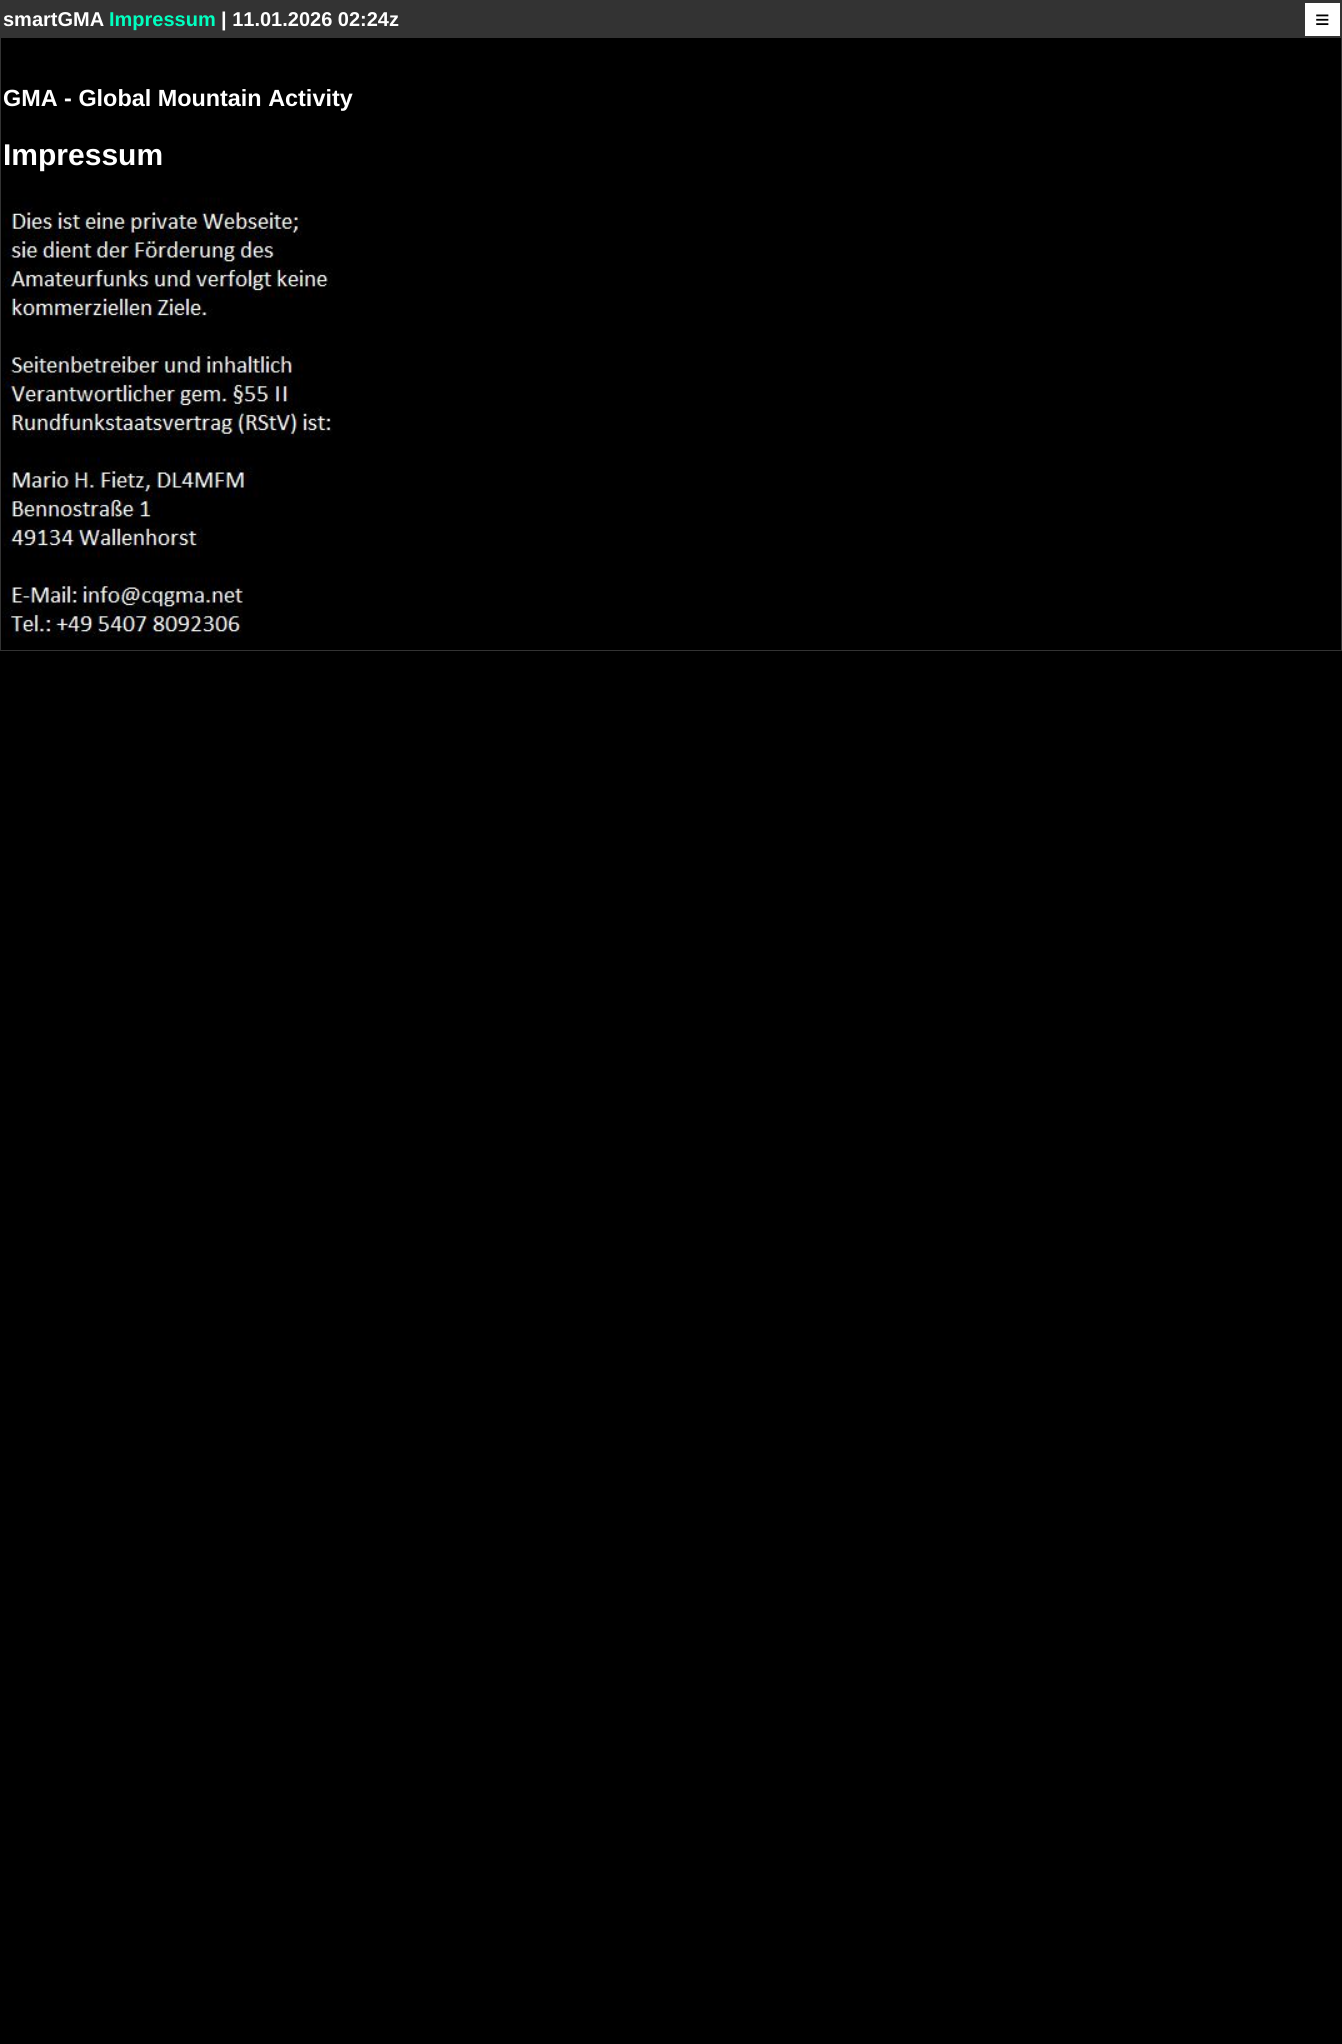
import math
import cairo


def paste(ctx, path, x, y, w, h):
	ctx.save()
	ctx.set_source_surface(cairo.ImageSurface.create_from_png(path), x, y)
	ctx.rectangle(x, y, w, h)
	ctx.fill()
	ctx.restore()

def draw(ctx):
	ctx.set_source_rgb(0, 0, 0)
	ctx.paint()
	ctx.set_source_rgb(0.2, 0.2, 0.2)
	ctx.rectangle(0, 0, 1342, 1)
	ctx.rectangle(1341, 0, 1, 651)
	ctx.rectangle(0, 650, 1342, 1)
	ctx.rectangle(0, 0, 1, 651)
	ctx.rectangle(1, 1, 1340, 37)
	ctx.fill()
	ctx.select_font_face('Liberation Sans', cairo.FONT_SLANT_NORMAL, cairo.FONT_WEIGHT_BOLD)
	ctx.set_font_size(20)
	ctx.set_source_rgb(1, 1, 1)
	ctx.move_to(3, 26)
	ctx.show_text('smartGMA')
	ctx.set_source_rgb(0, 1, 0.749)
	ctx.move_to(109, 26)
	ctx.show_text('Impressum')
	ctx.set_source_rgb(1, 1, 1)
	ctx.move_to(221, 26)
	ctx.show_text('| 11.01.2026 02:24z')
	ctx.rectangle(1305, 3, 35, 33)
	ctx.fill()
	ctx.select_font_face('Liberation Sans')
	ctx.set_font_size(25)
	ctx.set_source_rgb(0, 0, 0)
	ctx.move_to(1315, 28)
	ctx.show_text('≡')
	ctx.select_font_face('Liberation Sans', cairo.FONT_SLANT_NORMAL, cairo.FONT_WEIGHT_BOLD)
	ctx.set_font_size(23.4)
	ctx.set_source_rgb(1, 1, 1)
	ctx.move_to(3, 106)
	ctx.show_text('GMA - Global Mountain Activity')
	ctx.set_font_size(30)
	ctx.move_to(3, 165)
	ctx.show_text('Impressum')
	paste(ctx, 'media/1.png', 2, 197, 331, 441)


surface = cairo.ImageSurface(cairo.FORMAT_RGB24, 1342, 2044)
ctx = cairo.Context(surface)
options = cairo.FontOptions()
options.set_hint_metrics(cairo.HINT_METRICS_OFF)
options.set_hint_style(cairo.HINT_STYLE_NONE)
ctx.set_font_options(options)
ctx.set_miter_limit(4)
draw(ctx)
surface.write_to_png('image.png')
